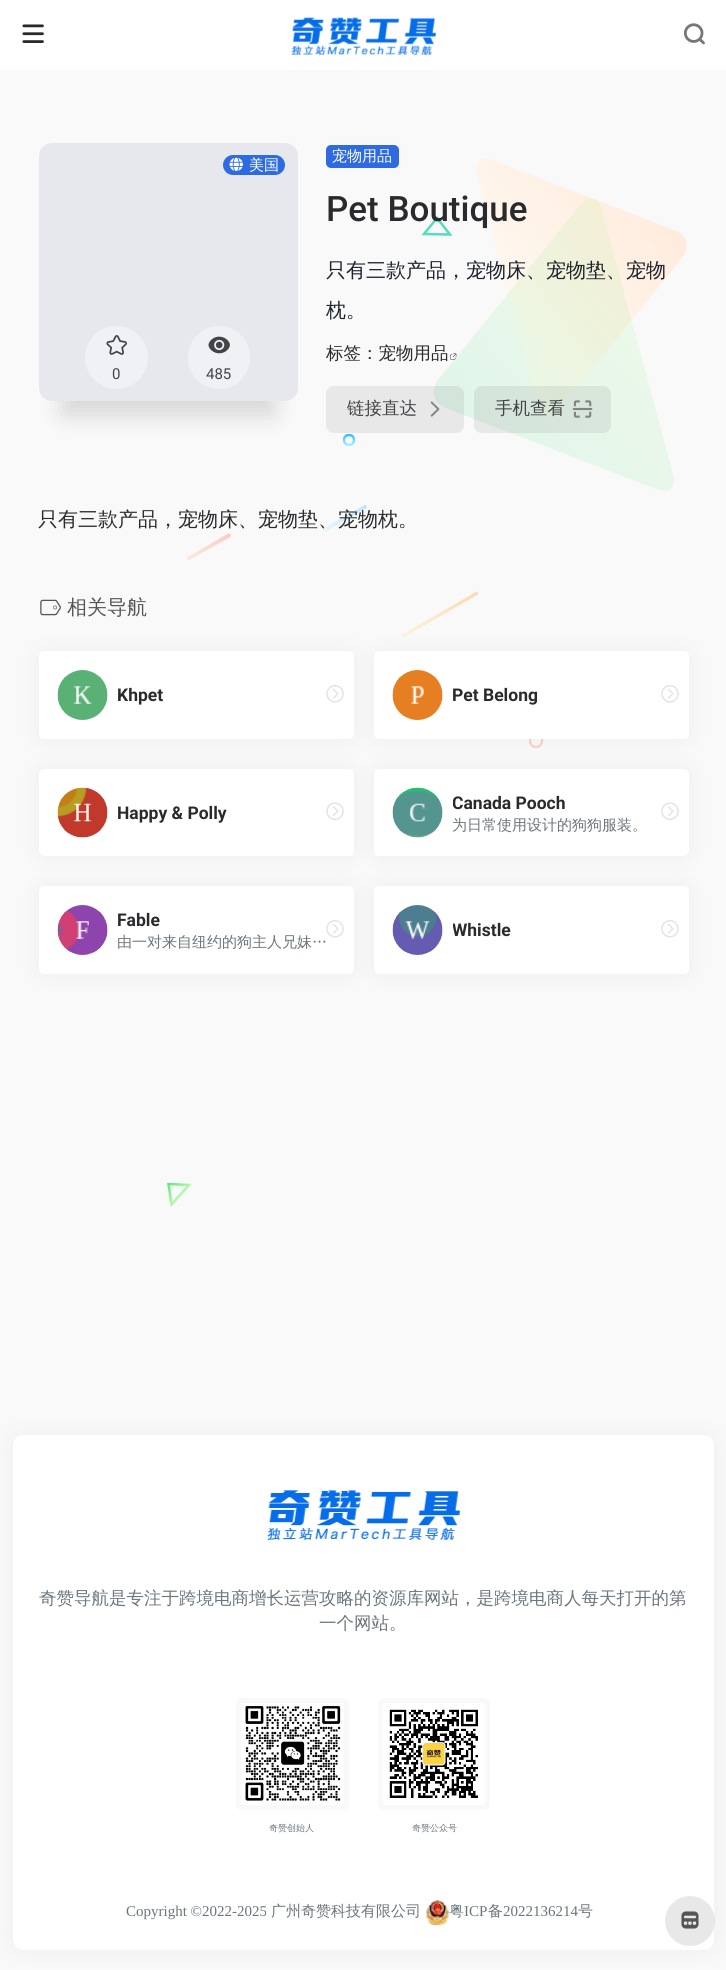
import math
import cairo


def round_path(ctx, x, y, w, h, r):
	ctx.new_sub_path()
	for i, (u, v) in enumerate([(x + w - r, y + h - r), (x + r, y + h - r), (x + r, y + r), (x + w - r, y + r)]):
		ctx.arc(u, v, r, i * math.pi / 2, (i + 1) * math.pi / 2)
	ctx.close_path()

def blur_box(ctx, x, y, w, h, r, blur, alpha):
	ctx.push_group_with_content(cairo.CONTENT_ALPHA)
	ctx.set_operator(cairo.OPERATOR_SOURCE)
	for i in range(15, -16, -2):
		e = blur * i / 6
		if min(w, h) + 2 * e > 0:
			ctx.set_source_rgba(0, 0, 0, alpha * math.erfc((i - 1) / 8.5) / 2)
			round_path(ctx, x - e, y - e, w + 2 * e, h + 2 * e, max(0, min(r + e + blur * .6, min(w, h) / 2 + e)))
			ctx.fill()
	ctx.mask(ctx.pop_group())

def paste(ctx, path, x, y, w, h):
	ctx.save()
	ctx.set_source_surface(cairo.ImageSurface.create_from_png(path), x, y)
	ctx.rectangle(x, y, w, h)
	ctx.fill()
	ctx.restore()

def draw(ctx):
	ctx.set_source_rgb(0.976, 0.976, 0.976)
	ctx.paint()
	ctx.set_source_rgb(1, 1, 1)
	ctx.rectangle(0, 0, 726, 70)
	ctx.fill()
	paste(ctx, 'media/1.png', 22, 24, 22, 19)
	paste(ctx, 'media/2.png', 291, 17, 146, 38)
	paste(ctx, 'media/3.png', 683, 23, 22, 22)
	ctx.set_source_rgb(0, 0, 0)
	blur_box(ctx, 64, 205, 209, 209, 0, 12.5, 0.15)
	ctx.set_source_rgb(0.902, 0.91, 0.929)
	round_path(ctx, 39, 143, 259, 258, 13)
	ctx.fill()
	ctx.set_source_rgb(0.184, 0.42, 0.878)
	round_path(ctx, 223, 155, 62, 20, 10)
	ctx.fill()
	paste(ctx, 'media/4.png', 229, 157, 14, 15)
	ctx.select_font_face('WenQuanYi Zen Hei Medium')
	ctx.set_font_size(15)
	ctx.set_source_rgb(1, 1, 1)
	ctx.move_to(249, 170)
	ctx.show_text('美国')
	ctx.set_source_rgb(0.941, 0.945, 0.957)
	ctx.new_path()
	ctx.arc(116.5, 357.5, 31.5, 0, 2 * math.pi)
	ctx.fill()
	paste(ctx, 'media/5.png', 106, 335, 21, 20)
	ctx.select_font_face('Roboto')
	ctx.set_source_rgb(0.259, 0.267, 0.275)
	ctx.move_to(112, 379)
	ctx.show_text('0')
	ctx.set_source_rgb(0.941, 0.945, 0.957)
	round_path(ctx, 188, 326, 62, 63, 31)
	ctx.fill()
	paste(ctx, 'media/6.png', 208, 336, 22, 18)
	ctx.set_source_rgb(0.259, 0.267, 0.275)
	ctx.move_to(206, 379)
	ctx.show_text('485')
	ctx.set_source_rgb(0.184, 0.42, 0.878)
	round_path(ctx, 326, 145, 73, 23, 5)
	ctx.fill()
	ctx.select_font_face('WenQuanYi Zen Hei Medium')
	ctx.set_source_rgb(1, 1, 1)
	ctx.move_to(332, 161)
	ctx.show_text('宠物用品')
	gradient = cairo.LinearGradient(633, 158, 449, 294)
	gradient.add_color_stop_rgba(0, 1, 0.922, 0.867, 1)
	gradient.add_color_stop_rgba(1, 1, 0.984, 0.957, 1)
	ctx.set_source(gradient)
	ctx.set_fill_rule(cairo.FILL_RULE_EVEN_ODD)
	ctx.new_path()
	ctx.move_to(538, 404)
	ctx.line_to(477, 175)
	ctx.curve_to(473, 162, 481, 155, 493, 160)
	ctx.line_to(674, 230)
	ctx.curve_to(687, 234, 691, 247, 682, 258)
	ctx.line_to(560, 409)
	ctx.curve_to(552, 420, 542, 418, 538, 404)
	ctx.close_path()
	ctx.fill()
	ctx.new_path()
	ctx.move_to(450, 234.5)
	ctx.line_to(437, 218)
	ctx.line_to(424, 234)
	ctx.close_path()
	gradient = cairo.LinearGradient(424, 220, 450, 233)
	gradient.add_color_stop_rgba(0, 0.808, 0.992, 0.925, 1)
	gradient.add_color_stop_rgba(0, 0.333, 0.859, 0.745, 1)
	ctx.set_source(gradient)
	ctx.set_line_width(2.5)
	ctx.stroke()
	gradient = cairo.LinearGradient(601, 198, 400, 367)
	gradient.add_color_stop_rgba(0, 0.584, 0.957, 0.412, 0.11)
	gradient.add_color_stop_rgba(1, 0.082, 0.816, 0.431, 0.11)
	ctx.set_source(gradient)
	ctx.new_path()
	ctx.move_to(602, 210)
	ctx.line_to(673, 474)
	ctx.curve_to(676, 488, 669, 494, 656, 489)
	ctx.line_to(446, 408)
	ctx.curve_to(433, 403, 430, 391, 438, 380)
	ctx.line_to(580, 205)
	ctx.curve_to(588, 194, 598, 196, 602, 210)
	ctx.close_path()
	ctx.fill()
	ctx.select_font_face('Roboto Medium')
	ctx.set_font_size(35)
	ctx.set_source_rgb(0.157, 0.165, 0.176)
	ctx.move_to(326, 221)
	ctx.show_text('Pet Boutique')
	ctx.select_font_face('WenQuanYi Zen Hei Medium')
	ctx.set_font_size(20)
	ctx.set_source_rgb(0.114, 0.137, 0.169)
	ctx.move_to(326, 277)
	ctx.show_text('只有三款产品，宠物床、宠物垫、宠物')
	ctx.move_to(326, 317)
	ctx.show_text('枕。')
	ctx.set_font_size(17.5)
	ctx.set_source_rgb(0.157, 0.165, 0.176)
	ctx.move_to(326, 359)
	ctx.show_text('标签：宠物用品')
	paste(ctx, 'media/7.png', 450, 353, 7, 7)
	ctx.set_source_rgba(0.541, 0.541, 0.541, 0.15)
	round_path(ctx, 326, 386, 138, 47, 8)
	ctx.fill()
	ctx.set_source_rgb(0.259, 0.267, 0.275)
	ctx.move_to(347, 414)
	ctx.show_text('链接直达')
	paste(ctx, 'media/8.png', 430, 401, 10, 16)
	ctx.set_source_rgba(0.541, 0.541, 0.541, 0.15)
	round_path(ctx, 474, 386, 137, 47, 8)
	ctx.fill()
	ctx.set_source_rgb(0.259, 0.267, 0.275)
	ctx.move_to(495, 414)
	ctx.show_text('手机查看')
	paste(ctx, 'media/9.png', 572, 400, 21, 18)
	ctx.save()
	ctx.set_fill_rule(cairo.FILL_RULE_WINDING)
	ctx.rectangle(343, 434, 12, 12)
	ctx.clip()
	ctx.arc(349, 440, 5, 0, 2 * math.pi)
	gradient = cairo.LinearGradient(349, 435, 349, 445)
	gradient.add_color_stop_rgba(0, 0.22, 0.745, 1, 1)
	gradient.add_color_stop_rgba(1, 0.647, 0.941, 1, 1)
	ctx.set_source(gradient)
	ctx.stroke()
	ctx.restore()
	gradient = cairo.LinearGradient(323, 531, 367, 506)
	gradient.add_color_stop_rgba(0, 0.922, 0.965, 0.98, 1)
	gradient.add_color_stop_rgba(1, 0.745, 0.886, 0.98, 1)
	ctx.set_source(gradient)
	ctx.new_path()
	ctx.move_to(324, 528)
	ctx.line_to(365, 505)
	ctx.line_to(366, 505)
	ctx.curve_to(369, 508, 363, 510, 359, 512)
	ctx.line_to(325, 532)
	ctx.curve_to(323, 532, 322, 529, 324, 528)
	ctx.close_path()
	ctx.fill()
	gradient = cairo.LinearGradient(187, 559, 230, 534)
	gradient.add_color_stop_rgba(0, 0.984, 0.914, 0.847, 1)
	gradient.add_color_stop_rgba(1, 0.984, 0.792, 0.8, 1)
	ctx.set_source(gradient)
	ctx.new_path()
	ctx.move_to(188, 557)
	ctx.line_to(229, 533)
	ctx.line_to(230, 534)
	ctx.curve_to(233, 537, 227, 539, 223, 541)
	ctx.line_to(189, 560)
	ctx.curve_to(187, 561, 186, 558, 188, 557)
	ctx.close_path()
	ctx.fill()
	gradient = cairo.LinearGradient(402, 636, 478, 593)
	gradient.add_color_stop_rgba(0, 0.984, 0.957, 0.863, 1)
	gradient.add_color_stop_rgba(1, 0.984, 0.847, 0.694, 1)
	ctx.set_source(gradient)
	ctx.new_path()
	ctx.move_to(403, 634)
	ctx.line_to(476, 592)
	ctx.curve_to(477, 591, 478, 592, 478, 594)
	ctx.line_to(477, 595)
	ctx.line_to(404, 637)
	ctx.curve_to(402, 638, 401, 635, 403, 634)
	ctx.close_path()
	ctx.fill()
	ctx.save()
	ctx.set_fill_rule(cairo.FILL_RULE_WINDING)
	ctx.rectangle(529, 734, 15, 15)
	ctx.clip()
	ctx.arc(536, 741, 6, 0, 2 * math.pi)
	gradient = cairo.LinearGradient(536, 735, 536, 748)
	gradient.add_color_stop_rgba(0, 0.988, 0.91, 0.627, 1)
	gradient.add_color_stop_rgba(0, 0.973, 0.827, 0.792, 1)
	ctx.set_source(gradient)
	ctx.stroke()
	ctx.restore()
	ctx.save()
	ctx.set_fill_rule(cairo.FILL_RULE_WINDING)
	ctx.rectangle(166, 1183, 27, 25)
	ctx.clip()
	ctx.new_path()
	ctx.move_to(189, 1185)
	ctx.line_to(168.5, 1184)
	ctx.line_to(171.5, 1204.5)
	ctx.close_path()
	gradient = cairo.LinearGradient(168, 1184, 186, 1200)
	gradient.add_color_stop_rgba(0, 0.333, 0.933, 0.443, 1)
	gradient.add_color_stop_rgba(1, 0.859, 0.992, 0.769, 1)
	ctx.set_source(gradient)
	ctx.stroke()
	ctx.restore()
	ctx.set_font_size(20)
	ctx.set_source_rgb(0.157, 0.165, 0.176)
	ctx.move_to(38, 526)
	ctx.show_text('只有三款产品，宠物床、宠物垫、宠物枕。')
	paste(ctx, 'media/10.png', 40, 599, 21, 17)
	ctx.set_source_rgb(0.333, 0.333, 0.333)
	ctx.move_to(67, 614)
	ctx.show_text('相关导航')
	ctx.set_source_rgb(0.62, 0.62, 0.62)
	blur_box(ctx, 45, 658, 303, 75, 0, 12.5, 0.2)
	ctx.set_source_rgb(1, 1, 1)
	round_path(ctx, 39, 651, 315, 88, 5)
	ctx.fill()
	ctx.set_source_rgb(0.949, 0.949, 0.949)
	ctx.arc(83, 695, 25, 0, 2 * math.pi)
	ctx.fill()
	paste(ctx, 'media/11.png', 57, 670, 51, 50)
	ctx.select_font_face('Roboto', cairo.FONT_SLANT_NORMAL, cairo.FONT_WEIGHT_BOLD)
	ctx.set_font_size(17.5)
	ctx.set_source_rgb(0.157, 0.165, 0.176)
	ctx.move_to(117, 701)
	ctx.show_text('Khpet')
	paste(ctx, 'media/12.png', 326, 685, 18, 18)
	ctx.set_source_rgb(0.62, 0.62, 0.62)
	blur_box(ctx, 380, 658, 303, 75, 0, 12.5, 0.2)
	ctx.set_source_rgb(1, 1, 1)
	round_path(ctx, 374, 651, 315, 88, 5)
	ctx.fill()
	ctx.set_source_rgb(0.949, 0.949, 0.949)
	ctx.arc(418, 695, 25, 0, 2 * math.pi)
	ctx.fill()
	paste(ctx, 'media/13.png', 392, 670, 51, 50)
	ctx.set_source_rgb(0.157, 0.165, 0.176)
	ctx.move_to(452, 701)
	ctx.show_text('Pet Belong')
	paste(ctx, 'media/12.png', 661, 685, 18, 18)
	ctx.set_source_rgb(0.62, 0.62, 0.62)
	blur_box(ctx, 45, 775, 303, 75, 0, 12.5, 0.2)
	ctx.set_source_rgb(1, 1, 1)
	round_path(ctx, 39, 769, 315, 87, 5)
	ctx.fill()
	ctx.set_source_rgb(0.949, 0.949, 0.949)
	ctx.arc(83, 813, 25, 0, 2 * math.pi)
	ctx.fill()
	paste(ctx, 'media/14.png', 57, 787, 51, 51)
	ctx.set_source_rgb(0.157, 0.165, 0.176)
	ctx.move_to(117, 819)
	ctx.show_text('Happy & Polly')
	paste(ctx, 'media/15.png', 326, 802, 18, 18)
	ctx.set_source_rgb(0.62, 0.62, 0.62)
	blur_box(ctx, 380, 775, 303, 75, 0, 12.5, 0.2)
	ctx.set_source_rgb(1, 1, 1)
	round_path(ctx, 374, 769, 315, 87, 5)
	ctx.fill()
	ctx.set_source_rgb(0.949, 0.949, 0.949)
	ctx.arc(418, 813, 25, 0, 2 * math.pi)
	ctx.fill()
	paste(ctx, 'media/16.png', 392, 787, 51, 51)
	ctx.save()
	ctx.set_fill_rule(cairo.FILL_RULE_WINDING)
	ctx.rectangle(453, 790, 211, 25)
	ctx.clip()
	ctx.set_source_rgb(0.157, 0.165, 0.176)
	ctx.move_to(452, 809)
	ctx.show_text('Canada Pooch')
	ctx.restore()
	ctx.select_font_face('WenQuanYi Zen Hei Medium')
	ctx.set_font_size(15)
	ctx.set_source_rgb(0.424, 0.459, 0.49)
	ctx.move_to(452, 830)
	ctx.show_text('为日常使用设计的狗狗服装。')
	paste(ctx, 'media/15.png', 661, 802, 18, 18)
	ctx.set_source_rgb(0.62, 0.62, 0.62)
	blur_box(ctx, 45, 893, 303, 75, 0, 12.5, 0.2)
	ctx.set_source_rgb(1, 1, 1)
	round_path(ctx, 39, 886, 315, 88, 5)
	ctx.fill()
	ctx.set_source_rgb(0.949, 0.949, 0.949)
	ctx.arc(83, 930, 25, 0, 2 * math.pi)
	ctx.fill()
	paste(ctx, 'media/17.png', 57, 905, 51, 50)
	ctx.select_font_face('Roboto', cairo.FONT_SLANT_NORMAL, cairo.FONT_WEIGHT_BOLD)
	ctx.set_font_size(17.5)
	ctx.set_source_rgb(0.157, 0.165, 0.176)
	ctx.move_to(117, 926)
	ctx.show_text('Fable')
	ctx.select_font_face('WenQuanYi Zen Hei Medium')
	ctx.set_font_size(15)
	ctx.set_source_rgb(0.424, 0.459, 0.49)
	ctx.move_to(117, 947)
	ctx.show_text('由一对来自纽约的狗主人兄妹…')
	paste(ctx, 'media/12.png', 326, 920, 18, 18)
	ctx.set_source_rgb(0.62, 0.62, 0.62)
	blur_box(ctx, 380, 893, 303, 75, 0, 12.5, 0.2)
	ctx.set_source_rgb(1, 1, 1)
	round_path(ctx, 374, 886, 315, 88, 5)
	ctx.fill()
	ctx.set_source_rgb(0.949, 0.949, 0.949)
	ctx.arc(418, 930, 25, 0, 2 * math.pi)
	ctx.fill()
	paste(ctx, 'media/18.png', 392, 905, 51, 50)
	ctx.save()
	ctx.set_fill_rule(cairo.FILL_RULE_WINDING)
	ctx.rectangle(453, 918, 211, 25)
	ctx.clip()
	ctx.select_font_face('Roboto', cairo.FONT_SLANT_NORMAL, cairo.FONT_WEIGHT_BOLD)
	ctx.set_font_size(17.5)
	ctx.set_source_rgb(0.157, 0.165, 0.176)
	ctx.move_to(452, 936)
	ctx.show_text('Whistle')
	ctx.restore()
	paste(ctx, 'media/12.png', 661, 920, 18, 18)
	ctx.set_source_rgb(0.62, 0.62, 0.62)
	blur_box(ctx, 19, 1441, 689, 503, 4, 12.5, 0.2)
	ctx.set_source_rgb(1, 1, 1)
	round_path(ctx, 13, 1435, 701, 515, 10)
	ctx.fill()
	paste(ctx, 'media/19.png', 267, 1490, 194, 50)
	ctx.set_font_size(17.5)
	ctx.set_source_rgb(0.424, 0.459, 0.49)
	ctx.move_to(39, 1604)
	ctx.show_text('奇赞导航是专注于跨境电商增长运营攻略的资源库网站，是跨境电商人每天打开的第')
	ctx.move_to(319, 1629)
	ctx.show_text('一个网站。')
	ctx.set_source_rgb(0.973, 0.976, 0.98)
	round_path(ctx, 236, 1698, 113, 112, 6)
	ctx.fill()
	paste(ctx, 'media/20.png', 241, 1703, 103, 102)
	ctx.set_font_size(9)
	ctx.set_source_rgb(0.424, 0.459, 0.49)
	ctx.move_to(269, 1831)
	ctx.show_text('奇赞创始人')
	ctx.set_source_rgb(0.973, 0.976, 0.98)
	round_path(ctx, 378, 1698, 112, 112, 6)
	ctx.fill()
	paste(ctx, 'media/21.png', 383, 1703, 102, 102)
	ctx.set_source_rgb(0.424, 0.459, 0.49)
	ctx.move_to(412, 1831)
	ctx.show_text('奇赞公众号')
	ctx.select_font_face('Liberation Serif')
	ctx.set_font_size(15)
	ctx.move_to(126, 1916)
	ctx.show_text('Copyright ©2022-2025')
	ctx.select_font_face('WenQuanYi Zen Hei Medium')
	ctx.move_to(271, 1916)
	ctx.show_text('广州奇赞科技有限公司')
	paste(ctx, 'media/22.png', 426, 1900, 23, 25)
	ctx.move_to(449, 1916)
	ctx.show_text('粤')
	ctx.select_font_face('Liberation Serif')
	ctx.move_to(464, 1916)
	ctx.show_text('ICP')
	ctx.select_font_face('WenQuanYi Zen Hei Medium')
	ctx.move_to(488, 1916)
	ctx.show_text('备')
	ctx.select_font_face('Liberation Serif')
	ctx.move_to(503, 1916)
	ctx.show_text('2022136214')
	ctx.select_font_face('WenQuanYi Zen Hei Medium')
	ctx.move_to(578, 1916)
	ctx.show_text('号')
	ctx.set_source_rgba(0.824, 0.824, 0.824, 0.5)
	ctx.new_path()
	ctx.arc(690, 1921, 25, 0, 2 * math.pi)
	ctx.fill()
	paste(ctx, 'media/23.png', 681, 1911, 18, 18)


surface = cairo.ImageSurface(cairo.FORMAT_RGB24, 726, 1970)
ctx = cairo.Context(surface)
options = cairo.FontOptions()
options.set_hint_metrics(cairo.HINT_METRICS_OFF)
options.set_hint_style(cairo.HINT_STYLE_NONE)
ctx.set_font_options(options)
ctx.set_miter_limit(4)
draw(ctx)
surface.write_to_png('image.png')
